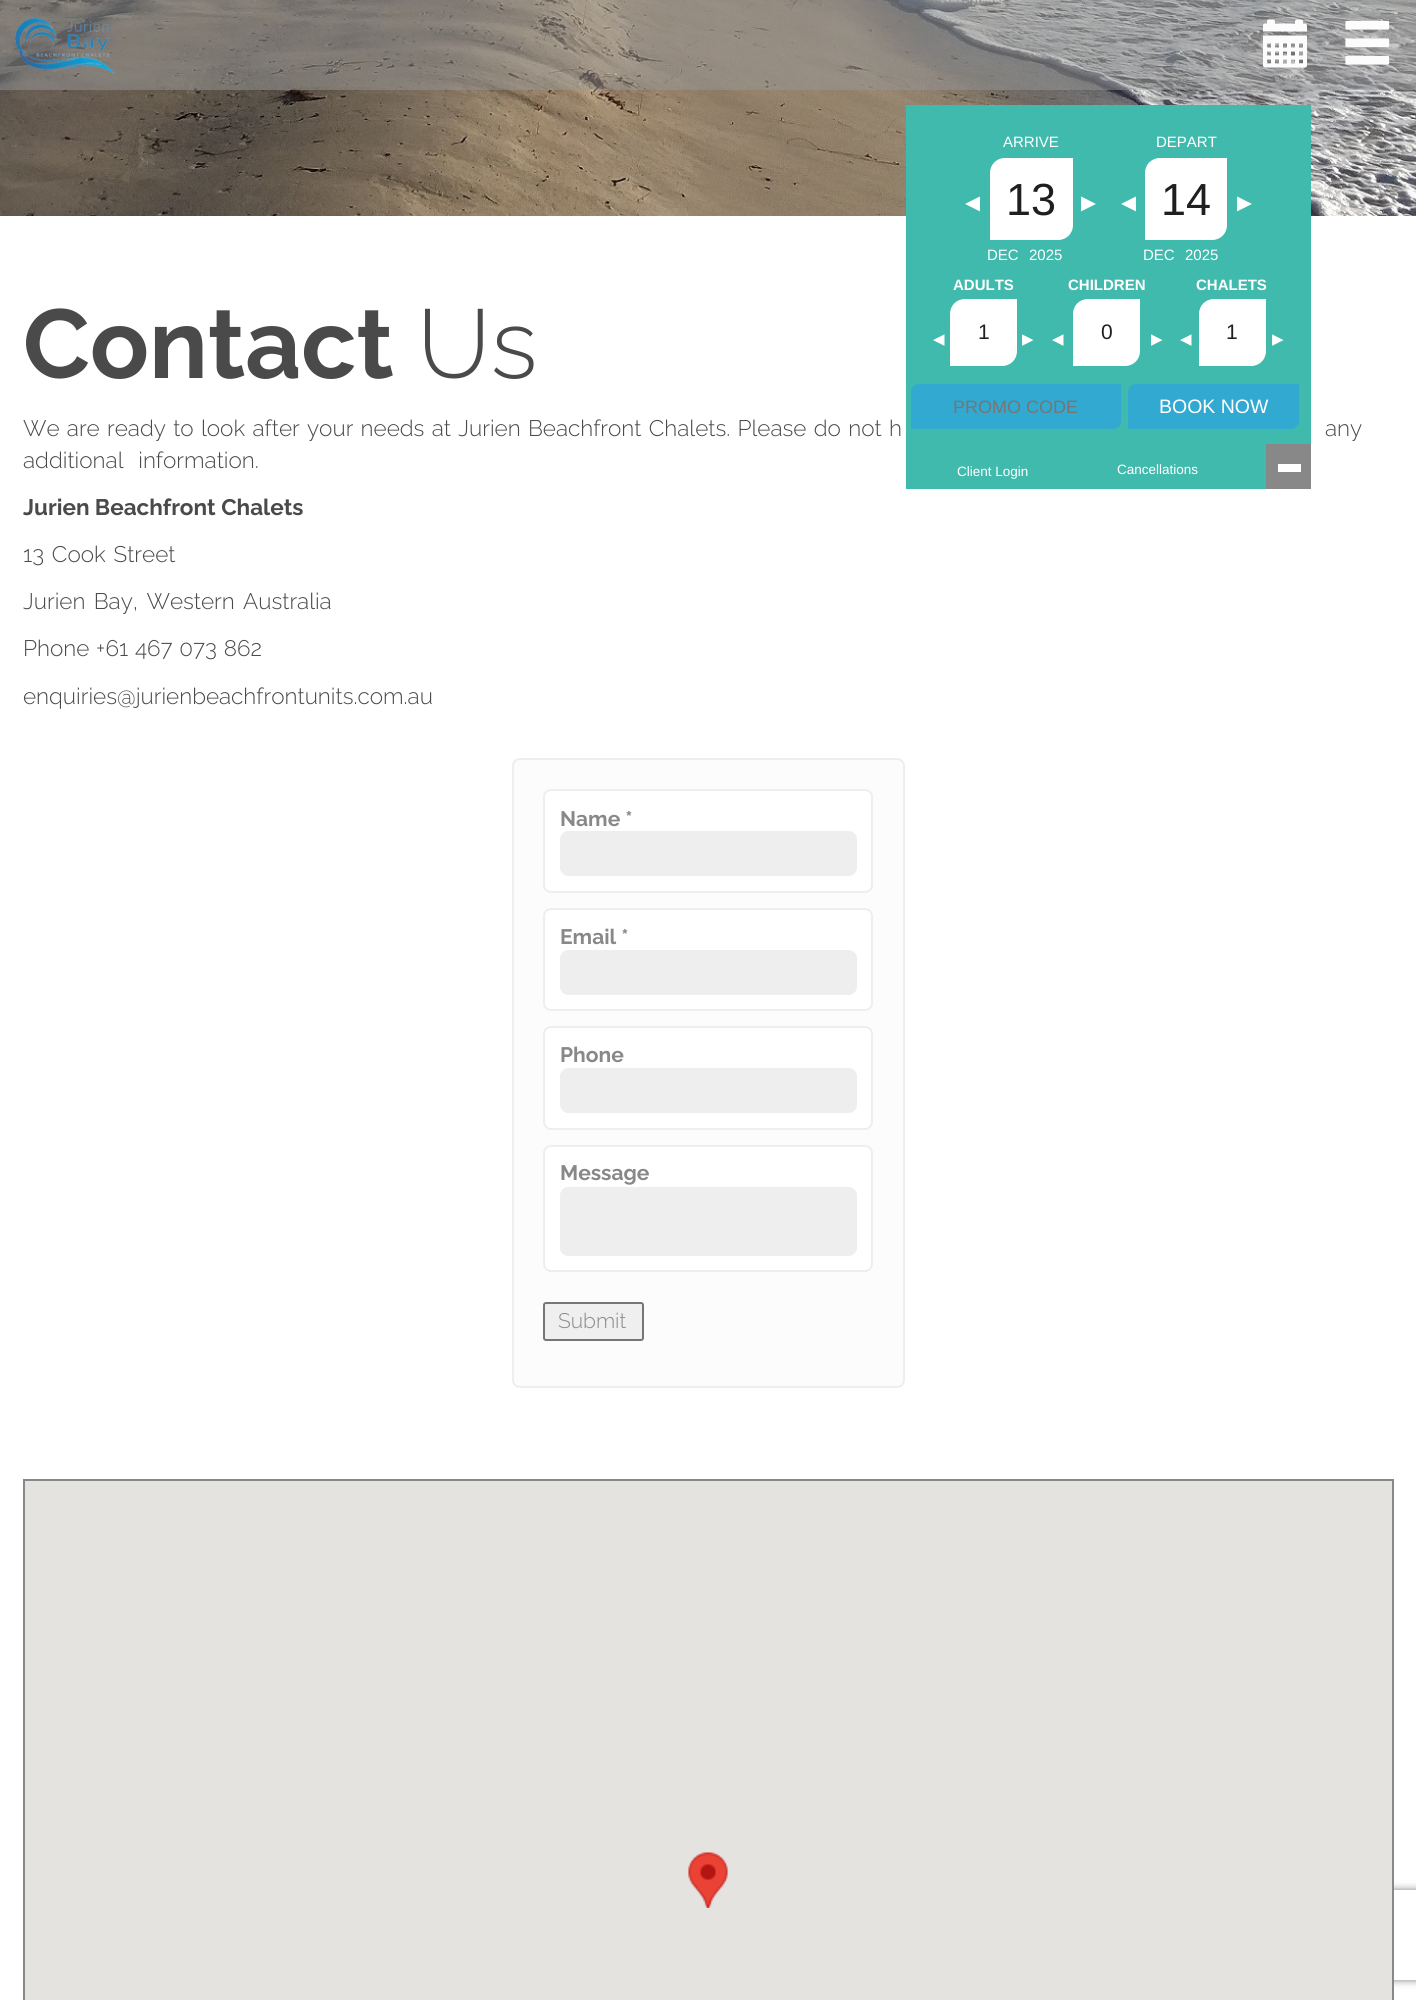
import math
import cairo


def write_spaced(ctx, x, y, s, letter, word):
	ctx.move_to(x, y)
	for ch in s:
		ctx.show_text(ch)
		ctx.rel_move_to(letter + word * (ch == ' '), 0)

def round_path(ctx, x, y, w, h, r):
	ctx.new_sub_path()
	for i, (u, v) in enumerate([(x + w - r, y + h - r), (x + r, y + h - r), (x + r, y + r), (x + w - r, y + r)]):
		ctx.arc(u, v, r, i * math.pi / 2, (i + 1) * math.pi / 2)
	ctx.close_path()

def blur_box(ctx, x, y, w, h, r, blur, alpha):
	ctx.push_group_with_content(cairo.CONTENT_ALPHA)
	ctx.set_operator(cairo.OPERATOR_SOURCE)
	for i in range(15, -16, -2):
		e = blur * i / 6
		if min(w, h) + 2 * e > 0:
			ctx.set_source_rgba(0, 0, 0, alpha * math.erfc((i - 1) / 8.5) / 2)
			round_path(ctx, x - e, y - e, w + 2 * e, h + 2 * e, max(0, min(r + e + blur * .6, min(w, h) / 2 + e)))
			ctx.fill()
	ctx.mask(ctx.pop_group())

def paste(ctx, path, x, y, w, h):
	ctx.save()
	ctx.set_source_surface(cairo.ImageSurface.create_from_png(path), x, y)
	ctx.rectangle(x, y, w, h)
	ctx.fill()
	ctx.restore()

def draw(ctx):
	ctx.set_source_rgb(1, 1, 1)
	ctx.paint()
	paste(ctx, 'media/4.png', 0, 0, 1416, 216)
	ctx.set_source_rgba(0.6, 0.6, 0.6, 0.5)
	ctx.rectangle(0, 0, 1416, 90)
	ctx.fill()
	paste(ctx, 'media/1.png', 14, 17, 101, 58)
	paste(ctx, 'media/2.png', 1263, 19, 44, 49)
	paste(ctx, 'media/3.png', 1345, 20, 45, 45)
	ctx.set_source_rgb(0.255, 0.729, 0.682)
	ctx.rectangle(906, 105, 405, 384)
	ctx.fill()
	ctx.select_font_face('Liberation Sans')
	ctx.set_font_size(15)
	ctx.set_source_rgb(1, 1, 1)
	ctx.move_to(1003, 147)
	ctx.show_text('ARRIVE')
	ctx.new_path()
	ctx.move_to(1005, 158)
	ctx.line_to(1073, 158)
	ctx.line_to(1073, 225)
	ctx.curve_to(1073, 233.5, 1066.5, 240, 1058, 240)
	ctx.line_to(990, 240)
	ctx.line_to(990, 173)
	ctx.curve_to(990, 164.5, 996.5, 158, 1005, 158)
	ctx.close_path()
	ctx.fill()
	ctx.select_font_face('DejaVu Sans')
	ctx.set_font_size(19.5)
	ctx.move_to(965, 209)
	ctx.show_text('◀')
	ctx.select_font_face('Liberation Sans')
	ctx.set_font_size(45)
	ctx.set_source_rgb(0.122, 0.122, 0.122)
	ctx.move_to(1006, 215)
	ctx.show_text('13')
	ctx.select_font_face('DejaVu Sans')
	ctx.set_font_size(19.5)
	ctx.set_source_rgb(1, 1, 1)
	ctx.move_to(1081, 209)
	ctx.show_text('▶')
	ctx.select_font_face('Liberation Sans')
	ctx.set_font_size(15)
	for x, y, s in [
		(987, 260, 'DEC'),
		(1029, 260, '2025'),
		(1156, 147, 'DEPART'),
	]:
		ctx.move_to(x, y)
		ctx.show_text(s)
	ctx.new_path()
	ctx.move_to(1160, 158)
	ctx.line_to(1227, 158)
	ctx.line_to(1227, 225)
	ctx.curve_to(1227, 233.5, 1220.5, 240, 1212, 240)
	ctx.line_to(1145, 240)
	ctx.line_to(1145, 173)
	ctx.curve_to(1145, 164.5, 1151.5, 158, 1160, 158)
	ctx.close_path()
	ctx.fill()
	ctx.select_font_face('DejaVu Sans')
	ctx.set_font_size(19.5)
	ctx.move_to(1121, 209)
	ctx.show_text('◀')
	ctx.select_font_face('Liberation Sans')
	ctx.set_font_size(45)
	ctx.set_source_rgb(0.122, 0.122, 0.122)
	ctx.move_to(1161, 215)
	ctx.show_text('14')
	ctx.select_font_face('DejaVu Sans')
	ctx.set_font_size(19.5)
	ctx.set_source_rgb(1, 1, 1)
	ctx.move_to(1237, 209)
	ctx.show_text('▶')
	ctx.select_font_face('Liberation Sans')
	ctx.set_font_size(15)
	ctx.move_to(1143, 260)
	ctx.show_text('DEC')
	ctx.move_to(1185, 260)
	ctx.show_text('2025')
	ctx.select_font_face('Liberation Sans', cairo.FONT_SLANT_NORMAL, cairo.FONT_WEIGHT_BOLD)
	ctx.move_to(953, 290)
	ctx.show_text('ADULTS')
	ctx.select_font_face('DejaVu Sans')
	ctx.move_to(933, 344)
	ctx.show_text('◀')
	ctx.new_path()
	ctx.move_to(965, 299)
	ctx.line_to(1017, 299)
	ctx.line_to(1017, 351)
	ctx.curve_to(1017, 359.5, 1010.5, 366, 1002, 366)
	ctx.line_to(950, 366)
	ctx.line_to(950, 314)
	ctx.curve_to(950, 305.5, 956.5, 299, 965, 299)
	ctx.close_path()
	ctx.fill()
	ctx.select_font_face('Liberation Sans')
	ctx.set_font_size(21)
	ctx.set_source_rgb(0.122, 0.122, 0.122)
	ctx.move_to(978, 339)
	ctx.show_text('1')
	ctx.select_font_face('DejaVu Sans')
	ctx.set_font_size(15)
	ctx.set_source_rgb(1, 1, 1)
	ctx.move_to(1022, 344)
	ctx.show_text('▶')
	ctx.select_font_face('Liberation Sans', cairo.FONT_SLANT_NORMAL, cairo.FONT_WEIGHT_BOLD)
	ctx.move_to(1068, 290)
	ctx.show_text('CHILDREN')
	ctx.select_font_face('DejaVu Sans')
	ctx.move_to(1052, 344)
	ctx.show_text('◀')
	ctx.new_path()
	ctx.move_to(1088, 299)
	ctx.line_to(1140, 299)
	ctx.line_to(1140, 351)
	ctx.curve_to(1140, 359.5, 1133.5, 366, 1125, 366)
	ctx.line_to(1073, 366)
	ctx.line_to(1073, 314)
	ctx.curve_to(1073, 305.5, 1079.5, 299, 1088, 299)
	ctx.close_path()
	ctx.fill()
	ctx.select_font_face('Liberation Sans')
	ctx.set_font_size(21)
	ctx.set_source_rgb(0.122, 0.122, 0.122)
	ctx.move_to(1101, 339)
	ctx.show_text('0')
	ctx.select_font_face('DejaVu Sans')
	ctx.set_font_size(15)
	ctx.set_source_rgb(1, 1, 1)
	ctx.move_to(1151, 344)
	ctx.show_text('▶')
	ctx.select_font_face('Liberation Sans', cairo.FONT_SLANT_NORMAL, cairo.FONT_WEIGHT_BOLD)
	ctx.move_to(1196, 290)
	ctx.show_text('CHALETS')
	ctx.select_font_face('DejaVu Sans')
	ctx.move_to(1180, 344)
	ctx.show_text('◀')
	ctx.new_path()
	ctx.move_to(1214, 299)
	ctx.line_to(1266, 299)
	ctx.line_to(1266, 351)
	ctx.curve_to(1266, 359.5, 1259.5, 366, 1251, 366)
	ctx.line_to(1199, 366)
	ctx.line_to(1199, 314)
	ctx.curve_to(1199, 305.5, 1205.5, 299, 1214, 299)
	ctx.close_path()
	ctx.fill()
	ctx.select_font_face('Liberation Sans')
	ctx.set_font_size(21)
	ctx.set_source_rgb(0.122, 0.122, 0.122)
	ctx.move_to(1226, 339)
	ctx.show_text('1')
	ctx.select_font_face('DejaVu Sans')
	ctx.set_font_size(15)
	ctx.set_source_rgb(1, 1, 1)
	ctx.move_to(1272, 344)
	ctx.show_text('▶')
	ctx.set_source_rgb(0.196, 0.663, 0.82)
	ctx.new_path()
	ctx.move_to(919, 384)
	ctx.line_to(1121, 384)
	ctx.line_to(1121, 421)
	ctx.curve_to(1121, 425.5, 1117.5, 429, 1113, 429)
	ctx.line_to(911, 429)
	ctx.line_to(911, 392)
	ctx.curve_to(911, 387.5, 914.5, 384, 919, 384)
	ctx.close_path()
	ctx.fill()
	ctx.select_font_face('Liberation Sans')
	ctx.set_font_size(18)
	ctx.set_source_rgb(0.459, 0.459, 0.459)
	ctx.move_to(953, 413)
	ctx.show_text('PROMO CODE')
	ctx.set_source_rgb(0.196, 0.663, 0.82)
	ctx.new_path()
	ctx.move_to(1136, 384)
	ctx.line_to(1299, 384)
	ctx.line_to(1299, 421)
	ctx.curve_to(1299, 425.5, 1295.5, 429, 1291, 429)
	ctx.line_to(1128, 429)
	ctx.line_to(1128, 392)
	ctx.curve_to(1128, 387.5, 1131.5, 384, 1136, 384)
	ctx.close_path()
	ctx.fill()
	ctx.set_font_size(19.5)
	ctx.set_source_rgb(1, 1, 1)
	ctx.move_to(1159, 413)
	ctx.show_text('BOOK NOW')
	ctx.set_font_size(13.5)
	ctx.move_to(957, 476)
	ctx.show_text('Client Login')
	ctx.move_to(1117, 474)
	ctx.show_text('Cancellations')
	ctx.set_source_rgb(0.533, 0.533, 0.533)
	ctx.rectangle(1266, 444, 45, 45)
	ctx.fill()
	ctx.set_source_rgb(1, 1, 1)
	ctx.rectangle(1278, 464, 23, 8)
	ctx.fill()
	ctx.select_font_face('Raleway', cairo.FONT_SLANT_NORMAL, cairo.FONT_WEIGHT_BOLD)
	ctx.set_font_size(97.5)
	ctx.set_source_rgb(0.29, 0.29, 0.29)
	ctx.move_to(23, 378)
	ctx.show_text('Contact')
	ctx.select_font_face('Raleway Light')
	ctx.move_to(417, 378)
	ctx.show_text('Us')
	ctx.set_font_size(22.5)
	write_spaced(ctx, 23, 436, 'We are ready to look after your needs at Jurien Beachfront Chalets. Please do not h', 0, 1.5)
	write_spaced(ctx, 1325, 436, 'any', 0, 1.5)
	write_spaced(ctx, 23, 468, 'additional information.', 0, 9)
	ctx.select_font_face('Raleway', cairo.FONT_SLANT_NORMAL, cairo.FONT_WEIGHT_BOLD)
	ctx.move_to(23, 515)
	ctx.show_text('Jurien Beachfront Chalets')
	ctx.select_font_face('Raleway Light')
	write_spaced(ctx, 23, 562, '13 Cook Street', 0, 2)
	write_spaced(ctx, 23, 609, 'Jurien Bay, Western Australia', 0, 2.5)
	write_spaced(ctx, 23, 656, 'Phone +61 467 073 862', 0, 1)
	ctx.move_to(23, 704)
	ctx.show_text('enquiries@jurienbeachfrontunits.com.au')
	ctx.set_source_rgb(0.988, 0.988, 0.988)
	round_path(ctx, 513, 759, 391, 628, 7)
	ctx.fill_preserve()
	ctx.set_source_rgb(0.933, 0.933, 0.933)
	ctx.stroke()
	ctx.set_source_rgb(1, 1, 1)
	round_path(ctx, 544, 790, 328, 102, 7)
	ctx.fill_preserve()
	ctx.set_source_rgb(0.933, 0.933, 0.933)
	ctx.stroke()
	ctx.select_font_face('Raleway', cairo.FONT_SLANT_NORMAL, cairo.FONT_WEIGHT_BOLD)
	ctx.set_font_size(21)
	ctx.set_source_rgb(0.533, 0.533, 0.533)
	ctx.move_to(560, 826)
	ctx.show_text('Name *')
	ctx.set_source_rgb(0.933, 0.933, 0.933)
	ctx.new_path()
	ctx.move_to(568, 831)
	ctx.line_to(849, 831)
	ctx.curve_to(853, 831, 857, 835, 857, 839)
	ctx.line_to(857, 868)
	ctx.curve_to(857, 872, 853, 876, 849, 876)
	ctx.line_to(568, 876)
	ctx.curve_to(564, 876, 560, 872, 560, 868)
	ctx.line_to(560, 839)
	ctx.curve_to(560, 835, 564, 831, 568, 831)
	ctx.close_path()
	ctx.fill()
	ctx.set_source_rgb(1, 1, 1)
	round_path(ctx, 544, 909, 328, 101, 7)
	ctx.fill_preserve()
	ctx.set_source_rgb(0.933, 0.933, 0.933)
	ctx.stroke()
	ctx.set_source_rgb(0.533, 0.533, 0.533)
	ctx.move_to(560, 944)
	ctx.show_text('Email *')
	ctx.set_source_rgb(0.933, 0.933, 0.933)
	ctx.new_path()
	ctx.move_to(568, 950)
	ctx.line_to(849, 950)
	ctx.curve_to(853, 950, 857, 954, 857, 958)
	ctx.line_to(857, 987)
	ctx.curve_to(857, 991, 853, 995, 849, 995)
	ctx.line_to(568, 995)
	ctx.curve_to(564, 995, 560, 991, 560, 987)
	ctx.line_to(560, 958)
	ctx.curve_to(560, 954, 564, 950, 568, 950)
	ctx.close_path()
	ctx.fill()
	ctx.set_source_rgb(1, 1, 1)
	round_path(ctx, 544, 1027, 328, 102, 7)
	ctx.fill_preserve()
	ctx.set_source_rgb(0.933, 0.933, 0.933)
	ctx.stroke()
	ctx.set_source_rgb(0.533, 0.533, 0.533)
	ctx.move_to(560, 1062)
	ctx.show_text('Phone')
	ctx.set_source_rgb(0.933, 0.933, 0.933)
	ctx.new_path()
	ctx.move_to(568, 1068)
	ctx.line_to(849, 1068)
	ctx.curve_to(853, 1068, 857, 1072, 857, 1076)
	ctx.line_to(857, 1105)
	ctx.curve_to(857, 1109, 853, 1113, 849, 1113)
	ctx.line_to(568, 1113)
	ctx.curve_to(564, 1113, 560, 1109, 560, 1105)
	ctx.line_to(560, 1076)
	ctx.curve_to(560, 1072, 564, 1068, 568, 1068)
	ctx.close_path()
	ctx.fill()
	ctx.set_source_rgb(1, 1, 1)
	round_path(ctx, 544, 1146, 328, 125, 7)
	ctx.fill_preserve()
	ctx.set_source_rgb(0.933, 0.933, 0.933)
	ctx.stroke()
	ctx.set_source_rgb(0.533, 0.533, 0.533)
	ctx.move_to(560, 1180)
	ctx.show_text('Message')
	ctx.set_source_rgb(0.933, 0.933, 0.933)
	ctx.new_path()
	ctx.move_to(568, 1187)
	ctx.line_to(849, 1187)
	ctx.curve_to(853, 1187, 857, 1191, 857, 1195)
	ctx.line_to(857, 1248)
	ctx.curve_to(857, 1252, 853, 1256, 849, 1256)
	ctx.line_to(568, 1256)
	ctx.curve_to(564, 1256, 560, 1252, 560, 1248)
	ctx.line_to(560, 1195)
	ctx.curve_to(560, 1191, 564, 1187, 568, 1187)
	ctx.close_path()
	ctx.fill()
	ctx.set_source_rgb(0.937, 0.937, 0.937)
	round_path(ctx, 544, 1303, 99, 37, 2)
	ctx.fill_preserve()
	ctx.set_source_rgb(0.463, 0.463, 0.463)
	ctx.stroke()
	ctx.select_font_face('Raleway Light')
	ctx.set_source_rgb(0.533, 0.533, 0.533)
	ctx.move_to(558, 1328)
	ctx.show_text('Submit')
	ctx.save()
	ctx.set_fill_rule(cairo.FILL_RULE_EVEN_ODD)
	ctx.new_path()
	ctx.move_to(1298, 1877)
	ctx.line_to(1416, 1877)
	ctx.line_to(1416, 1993)
	ctx.line_to(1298, 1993)
	ctx.close_path()
	ctx.move_to(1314, 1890)
	ctx.line_to(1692, 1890)
	ctx.curve_to(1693.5, 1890, 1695, 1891.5, 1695, 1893)
	ctx.line_to(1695, 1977)
	ctx.curve_to(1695, 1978.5, 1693.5, 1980, 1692, 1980)
	ctx.line_to(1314, 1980)
	ctx.curve_to(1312.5, 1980, 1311, 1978.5, 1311, 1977)
	ctx.line_to(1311, 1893)
	ctx.curve_to(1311, 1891.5, 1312.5, 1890, 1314, 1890)
	ctx.close_path()
	ctx.clip()
	ctx.set_source_rgb(0.502, 0.502, 0.502)
	blur_box(ctx, 1311, 1890, 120, 90, 3, 4, 1)
	ctx.restore()
	ctx.set_source_rgb(0.898, 0.89, 0.875)
	ctx.rectangle(24, 1480, 1369, 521)
	ctx.fill_preserve()
	ctx.set_source_rgb(0.533, 0.533, 0.533)
	ctx.stroke()
	paste(ctx, 'media/5.png', 688, 1852, 40, 56)


surface = cairo.ImageSurface(cairo.FORMAT_RGB24, 1416, 2000)
ctx = cairo.Context(surface)
options = cairo.FontOptions()
options.set_hint_metrics(cairo.HINT_METRICS_OFF)
options.set_hint_style(cairo.HINT_STYLE_NONE)
ctx.set_font_options(options)
ctx.set_miter_limit(4)
draw(ctx)
surface.write_to_png('image.png')
